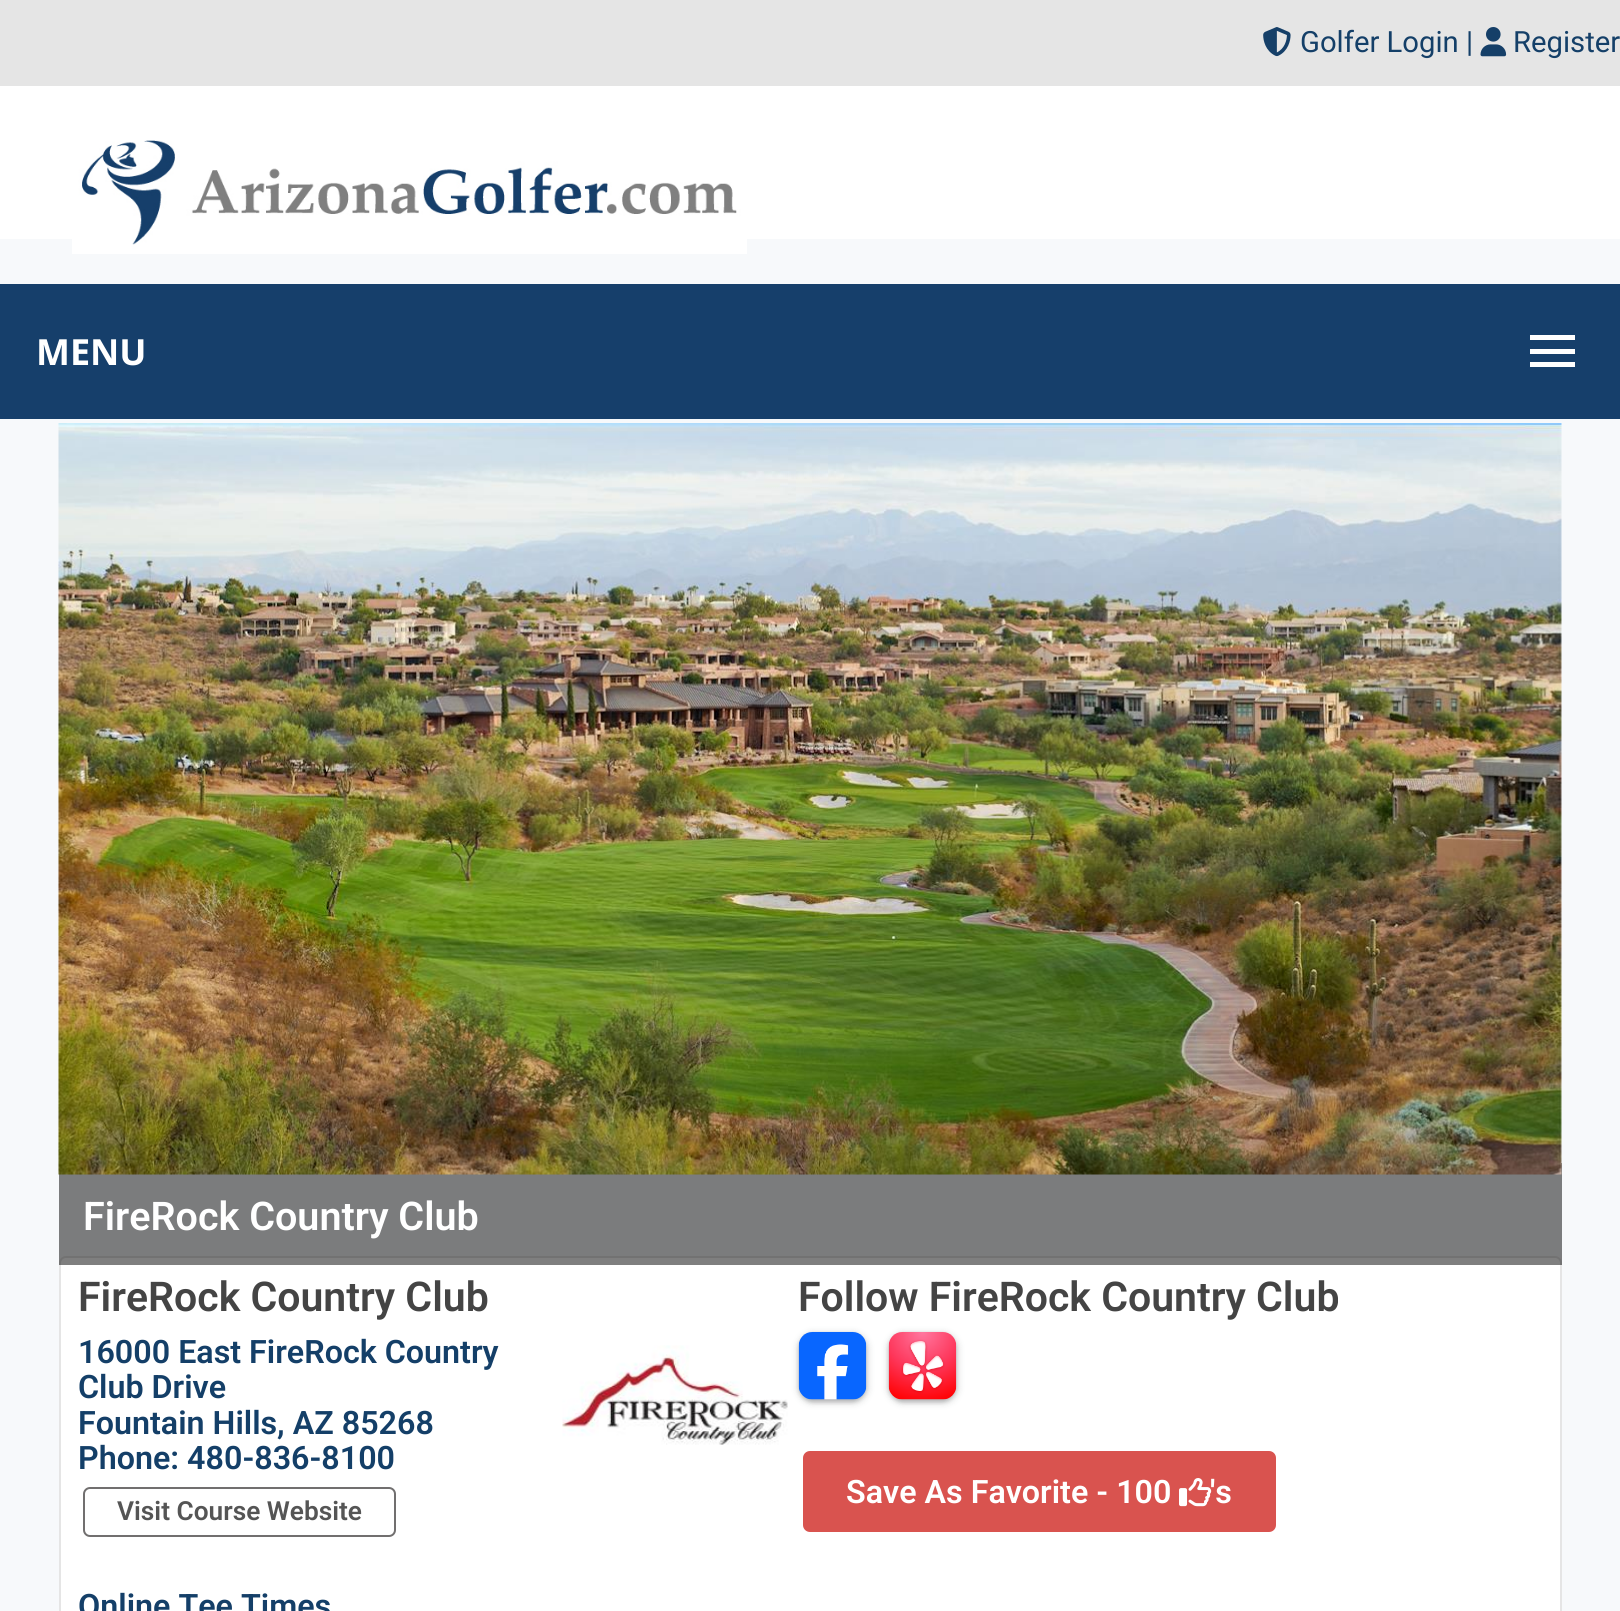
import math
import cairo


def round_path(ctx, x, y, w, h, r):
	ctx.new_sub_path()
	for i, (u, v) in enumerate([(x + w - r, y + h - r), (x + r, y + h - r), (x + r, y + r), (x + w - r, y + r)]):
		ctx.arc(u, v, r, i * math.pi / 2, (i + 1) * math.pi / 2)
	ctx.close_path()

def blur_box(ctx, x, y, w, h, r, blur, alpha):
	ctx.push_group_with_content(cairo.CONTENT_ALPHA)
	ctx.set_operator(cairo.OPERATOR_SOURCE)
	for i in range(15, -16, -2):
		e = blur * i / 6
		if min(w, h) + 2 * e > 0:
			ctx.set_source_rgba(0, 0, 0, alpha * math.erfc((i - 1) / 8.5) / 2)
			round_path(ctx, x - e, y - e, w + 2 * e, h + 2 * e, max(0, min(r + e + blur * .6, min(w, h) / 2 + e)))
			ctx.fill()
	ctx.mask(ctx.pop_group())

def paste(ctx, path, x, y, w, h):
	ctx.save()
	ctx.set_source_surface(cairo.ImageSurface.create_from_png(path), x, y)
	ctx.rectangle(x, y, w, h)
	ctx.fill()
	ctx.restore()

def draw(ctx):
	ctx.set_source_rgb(0.965, 0.973, 0.984)
	ctx.paint()
	ctx.set_source_rgb(0.898, 0.898, 0.898)
	ctx.rectangle(0, 0, 1620, 86)
	ctx.fill()
	paste(ctx, 'media/1.png', 1263, 27, 28, 30)
	ctx.select_font_face('Roboto')
	ctx.set_font_size(29.25)
	ctx.set_source_rgb(0.082, 0.247, 0.408)
	ctx.move_to(1300, 52)
	ctx.show_text('Golfer Login |')
	paste(ctx, 'media/2.png', 1480, 27, 27, 30)
	ctx.move_to(1513, 52)
	ctx.show_text('Register')
	ctx.set_source_rgb(1, 1, 1)
	ctx.rectangle(0, 86, 1620, 153)
	ctx.fill()
	paste(ctx, 'media/3.png', 72, 140, 675, 114)
	ctx.set_source_rgb(0.086, 0.247, 0.42)
	ctx.rectangle(0, 284, 1620, 135)
	ctx.fill()
	ctx.select_font_face('Open Sans', cairo.FONT_SLANT_NORMAL, cairo.FONT_WEIGHT_BOLD)
	ctx.set_font_size(36)
	ctx.set_source_rgb(1, 1, 1)
	ctx.move_to(36, 365)
	ctx.show_text('MENU')
	ctx.rectangle(1530, 362, 45, 5)
	ctx.rectangle(1530, 335, 45, 5)
	ctx.rectangle(1530, 349, 45, 5)
	ctx.fill()
	round_path(ctx, 60, 1257, 1501, 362, 6)
	ctx.fill_preserve()
	ctx.set_source_rgb(0.898, 0.898, 0.898)
	ctx.stroke()
	ctx.set_source_rgba(0, 0, 0, 0.5)
	ctx.rectangle(59, 1163, 1503, 102)
	ctx.fill()
	paste(ctx, 'media/4.png', 58, 423, 1504, 752)
	ctx.select_font_face('Roboto SemiBold')
	ctx.set_font_size(39.5)
	ctx.set_source_rgb(1, 1, 1)
	ctx.move_to(83, 1230)
	ctx.show_text('FireRock Country Club')
	ctx.set_font_size(41)
	ctx.set_source_rgb(0.267, 0.267, 0.267)
	ctx.move_to(78, 1311)
	ctx.show_text('FireRock Country Club')
	ctx.set_font_size(32.25)
	ctx.set_source_rgb(0.082, 0.247, 0.408)
	for x, y, s in [
		(78, 1363, '16000 East FireRock Country'),
		(78, 1398, 'Club Drive'),
		(78, 1434, 'Fountain Hills, AZ 85268'),
		(78, 1469, 'Phone: 480-836-8100'),
	]:
		ctx.move_to(x, y)
		ctx.show_text(s)
	paste(ctx, 'media/5.png', 562, 1345, 226, 100)
	round_path(ctx, 84, 1488, 311, 48, 6)
	ctx.set_source_rgb(0.443, 0.435, 0.435)
	ctx.stroke()
	ctx.set_font_size(26.25)
	ctx.set_source_rgb(0.333, 0.333, 0.333)
	ctx.move_to(117, 1520)
	ctx.show_text('Visit Course Website')
	ctx.set_font_size(32.25)
	ctx.set_source_rgb(0.082, 0.247, 0.408)
	ctx.move_to(78, 1617)
	ctx.show_text('Online Tee Times')
	ctx.set_font_size(41)
	ctx.set_source_rgb(0.267, 0.267, 0.267)
	ctx.move_to(798, 1311)
	ctx.show_text('Follow FireRock Country Club')
	ctx.set_source_rgb(0.235, 0.251, 0.263)
	blur_box(ctx, 797, 1332, 72, 72, 16, 3.5, 0.15)
	blur_box(ctx, 799, 1334, 67, 68, 14, 2, 0.3)
	paste(ctx, 'media/6.png', 798, 1332, 69, 68)
	blur_box(ctx, 887, 1332, 72, 72, 16, 3.5, 0.15)
	blur_box(ctx, 889, 1334, 67, 68, 14, 2, 0.3)
	paste(ctx, 'media/7.png', 888, 1332, 69, 68)
	ctx.set_source_rgb(0.851, 0.325, 0.31)
	round_path(ctx, 804, 1452, 471, 79, 6)
	ctx.fill_preserve()
	ctx.stroke()
	ctx.set_font_size(32.25)
	ctx.set_source_rgb(1, 1, 1)
	ctx.move_to(846, 1503)
	ctx.show_text('Save As Favorite - 100')
	ctx.move_to(1210, 1503)
	ctx.show_text('\'s')
	paste(ctx, 'media/8.png', 1179, 1478, 33, 29)


surface = cairo.ImageSurface(cairo.FORMAT_RGB24, 1620, 1611)
ctx = cairo.Context(surface)
options = cairo.FontOptions()
options.set_hint_metrics(cairo.HINT_METRICS_OFF)
options.set_hint_style(cairo.HINT_STYLE_NONE)
ctx.set_font_options(options)
ctx.set_miter_limit(4)
draw(ctx)
surface.write_to_png('image.png')
